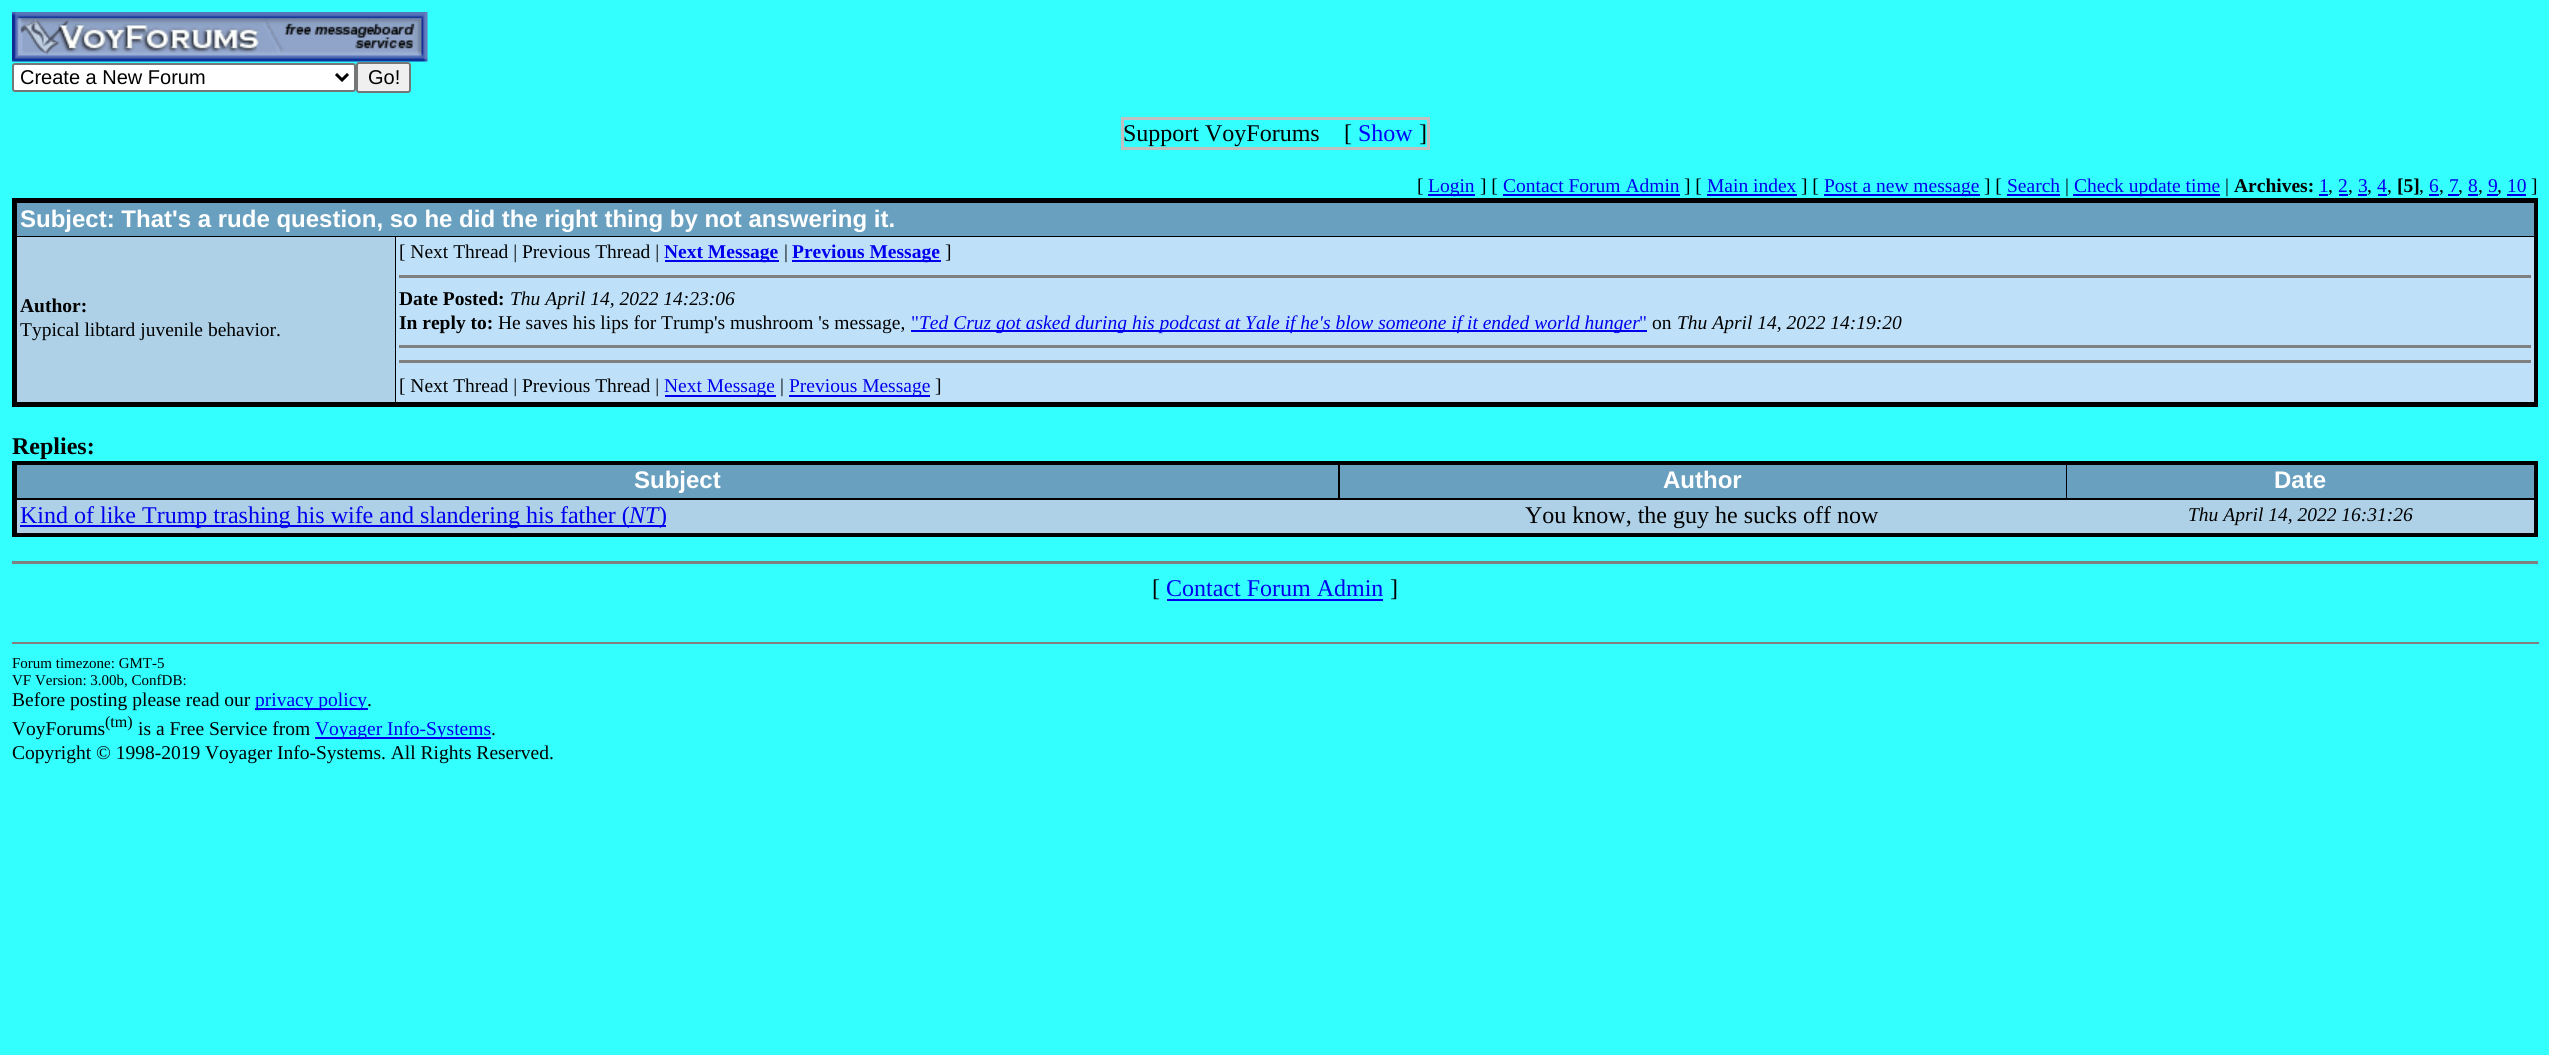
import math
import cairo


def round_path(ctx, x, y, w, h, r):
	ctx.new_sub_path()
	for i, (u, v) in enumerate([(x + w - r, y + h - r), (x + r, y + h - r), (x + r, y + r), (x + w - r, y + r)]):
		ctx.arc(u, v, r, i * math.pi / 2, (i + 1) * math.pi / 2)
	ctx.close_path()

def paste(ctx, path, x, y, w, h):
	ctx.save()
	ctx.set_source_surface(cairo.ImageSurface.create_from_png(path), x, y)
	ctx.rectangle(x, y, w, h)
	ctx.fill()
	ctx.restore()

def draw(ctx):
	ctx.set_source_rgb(0.2, 1, 1)
	ctx.paint()
	paste(ctx, 'media/1.png', 12, 12, 416, 50)
	ctx.set_source_rgb(1, 1, 1)
	round_path(ctx, 13, 64, 342, 27, 2)
	ctx.fill_preserve()
	ctx.set_source_rgb(0.463, 0.463, 0.463)
	ctx.stroke()
	ctx.new_path()
	ctx.move_to(336, 74)
	ctx.line_to(342, 80)
	ctx.line_to(348, 74)
	ctx.set_source_rgb(0, 0, 0)
	ctx.set_line_width(3)
	ctx.stroke()
	ctx.select_font_face('Liberation Sans')
	ctx.set_font_size(20)
	ctx.move_to(20, 84)
	ctx.show_text('Create a New Forum')
	ctx.set_source_rgb(0.937, 0.937, 0.937)
	round_path(ctx, 357, 63, 53, 29, 2)
	ctx.fill_preserve()
	ctx.set_source_rgb(0.463, 0.463, 0.463)
	ctx.set_line_width(2)
	ctx.stroke()
	ctx.set_source_rgb(0, 0, 0)
	ctx.move_to(368, 84)
	ctx.show_text('Go!')
	ctx.rectangle(1122.5, 118.5, 306, 30)
	ctx.set_source_rgb(0.753, 0.753, 0.753)
	ctx.set_line_width(3)
	ctx.stroke()
	ctx.select_font_face('Liberation Serif')
	ctx.set_font_size(24)
	ctx.set_source_rgb(0, 0, 0)
	ctx.move_to(1123, 141)
	ctx.show_text('Support VoyForums')
	ctx.move_to(1344, 141)
	ctx.show_text('[')
	ctx.set_source_rgb(0, 0, 1)
	ctx.move_to(1358, 141)
	ctx.show_text('Show')
	ctx.set_source_rgb(0, 0, 0)
	ctx.move_to(1419, 141)
	ctx.show_text(']')
	ctx.set_font_size(19.5)
	ctx.move_to(1417, 192)
	ctx.show_text('[')
	ctx.set_source_rgb(0, 0, 0.933)
	ctx.rectangle(1428, 194, 47, 2)
	ctx.fill()
	ctx.move_to(1428, 192)
	ctx.show_text('Login')
	ctx.set_source_rgb(0, 0, 0)
	ctx.move_to(1480, 192)
	ctx.show_text('] [')
	ctx.set_source_rgb(0, 0, 0.933)
	ctx.move_to(1503, 192)
	ctx.show_text('Contact Forum Admin')
	ctx.rectangle(1503, 194, 177, 2)
	ctx.fill()
	ctx.set_source_rgb(0, 0, 0)
	ctx.move_to(1684, 192)
	ctx.show_text('] [')
	ctx.set_source_rgb(0, 0, 0.933)
	ctx.move_to(1707, 192)
	ctx.show_text('Main index')
	ctx.rectangle(1707, 194, 90, 2)
	ctx.fill()
	ctx.set_source_rgb(0, 0, 0)
	ctx.move_to(1801, 192)
	ctx.show_text('] [')
	ctx.set_source_rgb(0, 0, 0.933)
	ctx.rectangle(1824, 194, 156, 2)
	ctx.fill()
	ctx.move_to(1824, 192)
	ctx.show_text('Post a new message')
	ctx.set_source_rgb(0, 0, 0)
	ctx.move_to(1984, 192)
	ctx.show_text('] [')
	ctx.set_source_rgb(0, 0, 0.933)
	ctx.move_to(2007, 192)
	ctx.show_text('Search')
	ctx.rectangle(2007, 194, 53, 2)
	ctx.fill()
	ctx.set_source_rgb(0, 0, 0)
	ctx.move_to(2065, 192)
	ctx.show_text('|')
	ctx.set_source_rgb(0, 0, 0.933)
	ctx.rectangle(2073, 194, 147, 2)
	ctx.fill()
	ctx.move_to(2074, 192)
	ctx.show_text('Check update time')
	ctx.set_source_rgb(0, 0, 0)
	ctx.move_to(2225, 192)
	ctx.show_text('|')
	ctx.select_font_face('Liberation Serif', cairo.FONT_SLANT_NORMAL, cairo.FONT_WEIGHT_BOLD)
	ctx.move_to(2234, 192)
	ctx.show_text('Archives:')
	ctx.select_font_face('Liberation Serif')
	ctx.set_source_rgb(0, 0, 0.933)
	ctx.move_to(2319, 192)
	ctx.show_text('1')
	ctx.set_source_rgb(0, 0, 0)
	ctx.move_to(2328, 192)
	ctx.show_text(',')
	ctx.set_source_rgb(0, 0, 0.933)
	ctx.rectangle(2319, 194, 9, 2)
	ctx.fill()
	ctx.move_to(2338, 192)
	ctx.show_text('2')
	ctx.set_source_rgb(0, 0, 0)
	ctx.move_to(2348, 192)
	ctx.show_text(',')
	ctx.set_source_rgb(0, 0, 0.933)
	ctx.rectangle(2339, 194, 9, 2)
	ctx.fill()
	ctx.move_to(2358, 192)
	ctx.show_text('3')
	ctx.set_source_rgb(0, 0, 0)
	ctx.move_to(2367, 192)
	ctx.show_text(',')
	ctx.set_source_rgb(0, 0, 0.933)
	ctx.rectangle(2358, 194, 9, 2)
	ctx.fill()
	ctx.move_to(2377, 192)
	ctx.show_text('4')
	ctx.set_source_rgb(0, 0, 0)
	ctx.move_to(2387, 192)
	ctx.show_text(',')
	ctx.set_source_rgb(0, 0, 0.933)
	ctx.rectangle(2378, 194, 9, 2)
	ctx.fill()
	ctx.select_font_face('Liberation Serif', cairo.FONT_SLANT_NORMAL, cairo.FONT_WEIGHT_BOLD)
	ctx.set_source_rgb(0, 0, 0)
	ctx.move_to(2397, 192)
	ctx.show_text('[5]')
	ctx.select_font_face('Liberation Serif')
	ctx.move_to(2419, 192)
	ctx.show_text(',')
	ctx.set_source_rgb(0, 0, 0.933)
	ctx.move_to(2429, 192)
	ctx.show_text('6')
	ctx.set_source_rgb(0, 0, 0)
	ctx.move_to(2439, 192)
	ctx.show_text(',')
	ctx.set_source_rgb(0, 0, 0.933)
	ctx.rectangle(2429, 194, 10, 2)
	ctx.fill()
	ctx.move_to(2449, 192)
	ctx.show_text('7')
	ctx.set_source_rgb(0, 0, 0)
	ctx.move_to(2458, 192)
	ctx.show_text(',')
	ctx.set_source_rgb(0, 0, 0.933)
	ctx.rectangle(2448, 194, 11, 2)
	ctx.fill()
	ctx.move_to(2468, 192)
	ctx.show_text('8')
	ctx.set_source_rgb(0, 0, 0)
	ctx.move_to(2478, 192)
	ctx.show_text(',')
	ctx.set_source_rgb(0, 0, 0.933)
	ctx.rectangle(2468, 194, 10, 2)
	ctx.fill()
	ctx.move_to(2488, 192)
	ctx.show_text('9')
	ctx.set_source_rgb(0, 0, 0)
	ctx.move_to(2497, 192)
	ctx.show_text(',')
	ctx.set_source_rgb(0, 0, 0.933)
	ctx.rectangle(2487, 194, 11, 2)
	ctx.fill()
	ctx.rectangle(2507, 194, 19, 2)
	ctx.fill()
	ctx.move_to(2507, 192)
	ctx.show_text('10')
	ctx.set_source_rgb(0, 0, 0)
	ctx.move_to(2531, 192)
	ctx.show_text(']')
	ctx.rectangle(12, 198, 2526, 209)
	ctx.fill()
	ctx.set_source_rgb(0.412, 0.627, 0.753)
	ctx.rectangle(17, 203, 2517, 33)
	ctx.fill()
	ctx.select_font_face('Liberation Sans', cairo.FONT_SLANT_NORMAL, cairo.FONT_WEIGHT_BOLD)
	ctx.set_font_size(24)
	ctx.set_source_rgb(1, 1, 1)
	ctx.move_to(20, 227)
	ctx.show_text('Subject: That\'s a rude question, so he did the right thing by not answering it.')
	ctx.set_source_rgb(0.682, 0.82, 0.91)
	ctx.rectangle(17, 237, 378, 165)
	ctx.fill()
	ctx.select_font_face('Liberation Serif', cairo.FONT_SLANT_NORMAL, cairo.FONT_WEIGHT_BOLD)
	ctx.set_font_size(19.5)
	ctx.set_source_rgb(0, 0, 0)
	ctx.move_to(20, 312)
	ctx.show_text('Author:')
	ctx.select_font_face('Liberation Serif')
	ctx.move_to(20, 336)
	ctx.show_text('Typical libtard juvenile behavior.')
	ctx.set_source_rgb(0.745, 0.882, 0.973)
	ctx.rectangle(396, 237, 2138, 165)
	ctx.fill()
	ctx.set_source_rgb(0, 0, 0)
	ctx.move_to(399, 258)
	ctx.show_text('[ Next Thread | Previous Thread |')
	ctx.set_source_rgb(0, 0, 0.933)
	ctx.rectangle(665, 260, 114, 2)
	ctx.fill()
	ctx.select_font_face('Liberation Serif', cairo.FONT_SLANT_NORMAL, cairo.FONT_WEIGHT_BOLD)
	ctx.move_to(664, 258)
	ctx.show_text('Next Message')
	ctx.select_font_face('Liberation Serif')
	ctx.set_source_rgb(0, 0, 0)
	ctx.move_to(784, 258)
	ctx.show_text('|')
	ctx.set_source_rgb(0, 0, 0.933)
	ctx.rectangle(792, 260, 149, 2)
	ctx.fill()
	ctx.select_font_face('Liberation Serif', cairo.FONT_SLANT_NORMAL, cairo.FONT_WEIGHT_BOLD)
	ctx.move_to(792, 258)
	ctx.show_text('Previous Message')
	ctx.select_font_face('Liberation Serif')
	ctx.set_source_rgb(0, 0, 0)
	ctx.move_to(945, 258)
	ctx.show_text(']')
	ctx.set_source_rgb(0.502, 0.502, 0.502)
	ctx.rectangle(399, 275, 2132, 3)
	ctx.fill()
	ctx.select_font_face('Liberation Serif', cairo.FONT_SLANT_NORMAL, cairo.FONT_WEIGHT_BOLD)
	ctx.set_source_rgb(0, 0, 0)
	ctx.move_to(399, 305)
	ctx.show_text('Date Posted:')
	ctx.select_font_face('Liberation Serif', cairo.FONT_SLANT_ITALIC)
	ctx.move_to(510, 305)
	ctx.show_text('Thu April 14, 2022 14:23:06')
	ctx.select_font_face('Liberation Serif', cairo.FONT_SLANT_NORMAL, cairo.FONT_WEIGHT_BOLD)
	ctx.move_to(399, 329)
	ctx.show_text('In reply to:')
	ctx.select_font_face('Liberation Serif')
	ctx.move_to(498, 329)
	ctx.show_text('He saves his lips for Trump\'s mushroom \'s message,')
	ctx.set_source_rgb(0, 0, 0.933)
	ctx.move_to(911, 329)
	ctx.show_text('"')
	ctx.rectangle(911, 330, 736, 2)
	ctx.fill()
	ctx.select_font_face('Liberation Serif', cairo.FONT_SLANT_ITALIC)
	ctx.move_to(919, 329)
	ctx.show_text('Ted Cruz got asked during his podcast at Yale if he\'s blow someone if it ended world hunger')
	ctx.select_font_face('Liberation Serif')
	ctx.move_to(1639, 329)
	ctx.show_text('"')
	ctx.select_font_face('Liberation Serif', cairo.FONT_SLANT_ITALIC)
	ctx.set_source_rgb(0, 0, 0)
	ctx.move_to(1677, 329)
	ctx.show_text('Thu April 14, 2022 14:19:20')
	ctx.select_font_face('Liberation Serif')
	ctx.move_to(1652, 329)
	ctx.show_text('on')
	ctx.set_source_rgb(0.502, 0.502, 0.502)
	ctx.rectangle(399, 345, 2132, 3)
	ctx.fill()
	ctx.rectangle(399, 360, 2132, 3)
	ctx.fill()
	ctx.set_source_rgb(0, 0, 0)
	ctx.move_to(399, 392)
	ctx.show_text('[ Next Thread | Previous Thread |')
	ctx.set_source_rgb(0, 0, 0.933)
	ctx.rectangle(665, 395, 111, 2)
	ctx.fill()
	ctx.move_to(664, 392)
	ctx.show_text('Next Message')
	ctx.set_source_rgb(0, 0, 0)
	ctx.move_to(780, 392)
	ctx.show_text('|')
	ctx.set_source_rgb(0, 0, 0.933)
	ctx.rectangle(789, 395, 141, 2)
	ctx.fill()
	ctx.move_to(789, 392)
	ctx.show_text('Previous Message')
	ctx.set_source_rgb(0, 0, 0)
	ctx.move_to(935, 392)
	ctx.show_text(']')
	ctx.select_font_face('Liberation Serif', cairo.FONT_SLANT_NORMAL, cairo.FONT_WEIGHT_BOLD)
	ctx.set_font_size(24)
	ctx.move_to(12, 454)
	ctx.show_text('Replies:')
	ctx.rectangle(12, 461, 2526, 76)
	ctx.fill()
	ctx.set_source_rgb(0.412, 0.627, 0.753)
	ctx.rectangle(17, 465, 1321, 33)
	ctx.fill()
	ctx.select_font_face('Liberation Sans', cairo.FONT_SLANT_NORMAL, cairo.FONT_WEIGHT_BOLD)
	ctx.set_source_rgb(1, 1, 1)
	ctx.move_to(634, 488)
	ctx.show_text('Subject')
	ctx.set_source_rgb(0.412, 0.627, 0.753)
	ctx.rectangle(1340, 465, 726, 33)
	ctx.fill()
	ctx.set_source_rgb(1, 1, 1)
	ctx.move_to(1663, 488)
	ctx.show_text('Author')
	ctx.set_source_rgb(0.412, 0.627, 0.753)
	ctx.rectangle(2067, 465, 467, 33)
	ctx.fill()
	ctx.set_source_rgb(1, 1, 1)
	ctx.move_to(2274, 488)
	ctx.show_text('Date')
	ctx.set_source_rgb(0.682, 0.82, 0.91)
	ctx.rectangle(17, 500, 2517, 33)
	ctx.fill()
	ctx.set_source_rgb(0, 0, 0.933)
	ctx.rectangle(20, 525, 646, 2)
	ctx.fill()
	ctx.select_font_face('Liberation Serif')
	ctx.move_to(20, 523)
	ctx.show_text('Kind of like Trump trashing his wife and slandering his father (')
	ctx.select_font_face('Liberation Serif', cairo.FONT_SLANT_ITALIC)
	ctx.move_to(629, 523)
	ctx.show_text('NT')
	ctx.select_font_face('Liberation Serif')
	ctx.move_to(659, 523)
	ctx.show_text(')')
	ctx.set_source_rgb(0, 0, 0)
	ctx.move_to(1525, 523)
	ctx.show_text('You know, the guy he sucks off now')
	ctx.select_font_face('Liberation Serif', cairo.FONT_SLANT_ITALIC)
	ctx.set_font_size(19.5)
	ctx.move_to(2188, 521)
	ctx.show_text('Thu April 14, 2022 16:31:26')
	ctx.set_source_rgb(0.502, 0.502, 0.502)
	ctx.rectangle(12, 561, 2526, 3)
	ctx.fill()
	ctx.select_font_face('Liberation Serif')
	ctx.set_font_size(24)
	ctx.set_source_rgb(0, 0, 0)
	ctx.move_to(1152, 596)
	ctx.show_text('[')
	ctx.set_source_rgb(0, 0, 0.933)
	ctx.move_to(1166, 596)
	ctx.show_text('Contact Forum Admin')
	ctx.rectangle(1167, 599, 216, 2)
	ctx.fill()
	ctx.set_source_rgb(0, 0, 0)
	ctx.move_to(1390, 596)
	ctx.show_text(']')
	ctx.set_source_rgb(0.502, 0.502, 0.502)
	ctx.rectangle(12, 642, 2527, 2)
	ctx.fill()
	ctx.set_font_size(15)
	ctx.set_source_rgb(0, 0, 0)
	ctx.move_to(12, 668)
	ctx.show_text('Forum timezone: GMT-5')
	ctx.move_to(12, 685)
	ctx.show_text('VF Version: 3.00b, ConfDB:')
	ctx.set_font_size(19.5)
	ctx.move_to(12, 706)
	ctx.show_text('Before posting please read our')
	ctx.set_source_rgb(0, 0, 0.933)
	ctx.rectangle(255, 708, 113, 2)
	ctx.fill()
	ctx.move_to(255, 706)
	ctx.show_text('privacy policy')
	ctx.set_source_rgb(0, 0, 0)
	ctx.move_to(367, 706)
	ctx.show_text('.')
	ctx.move_to(12, 735)
	ctx.show_text('VoyForums')
	ctx.set_font_size(16)
	ctx.move_to(105, 727)
	ctx.show_text('(tm)')
	ctx.set_font_size(19.5)
	ctx.move_to(138, 735)
	ctx.show_text('is a Free Service from')
	ctx.set_source_rgb(0, 0, 0.933)
	ctx.rectangle(315, 737, 176, 2)
	ctx.fill()
	ctx.move_to(315, 735)
	ctx.show_text('Voyager Info-Systems')
	ctx.set_source_rgb(0, 0, 0)
	ctx.move_to(491, 735)
	ctx.show_text('.')
	ctx.move_to(12, 759)
	ctx.show_text('Copyright © 1998-2019 Voyager Info-Systems. All Rights Reserved.')


surface = cairo.ImageSurface(cairo.FORMAT_RGB24, 2549, 1055)
ctx = cairo.Context(surface)
options = cairo.FontOptions()
options.set_hint_metrics(cairo.HINT_METRICS_OFF)
options.set_hint_style(cairo.HINT_STYLE_NONE)
ctx.set_font_options(options)
ctx.set_miter_limit(4)
draw(ctx)
surface.write_to_png('image.png')
